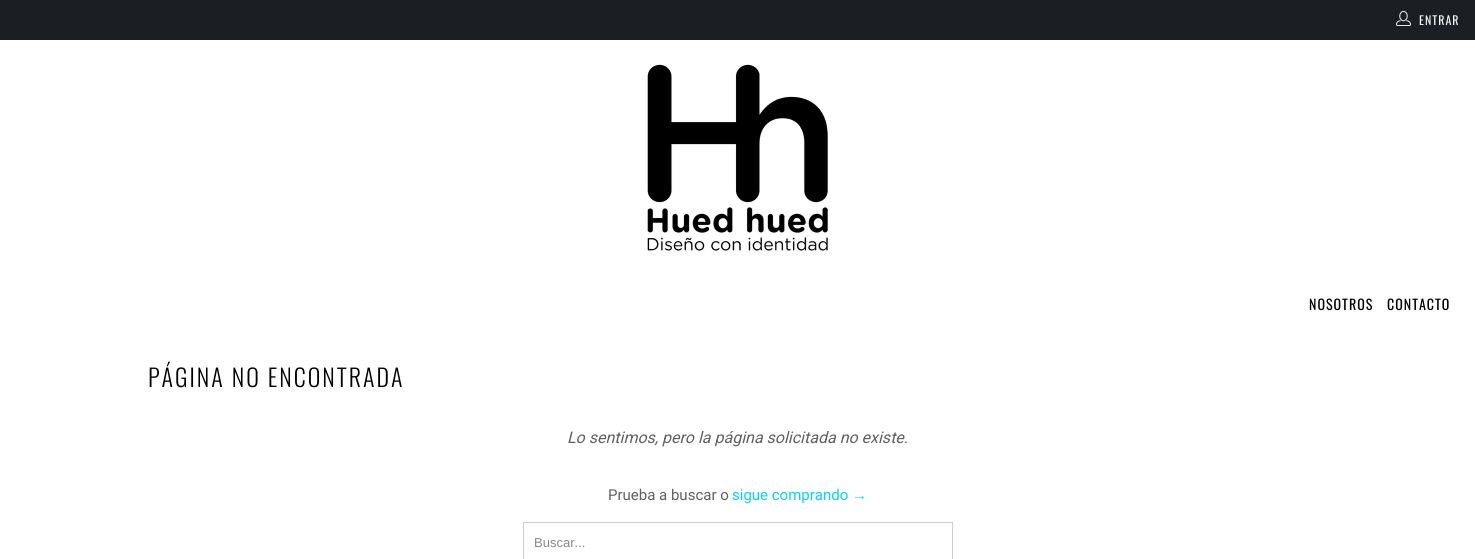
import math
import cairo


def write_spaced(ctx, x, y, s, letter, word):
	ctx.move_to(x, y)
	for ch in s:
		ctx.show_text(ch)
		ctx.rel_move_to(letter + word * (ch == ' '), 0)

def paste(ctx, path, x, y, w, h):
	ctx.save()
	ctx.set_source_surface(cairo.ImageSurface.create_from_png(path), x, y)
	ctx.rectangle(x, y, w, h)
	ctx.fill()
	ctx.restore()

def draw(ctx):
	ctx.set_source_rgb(1, 1, 1)
	ctx.paint()
	ctx.set_source_rgb(0.106, 0.122, 0.137)
	ctx.rectangle(0, 0, 1475, 40)
	ctx.fill()
	paste(ctx, 'media/1.png', 1396, 10, 15, 16)
	ctx.select_font_face('Oswald')
	ctx.set_font_size(12)
	ctx.set_source_rgb(0.957, 0.957, 0.957)
	write_spaced(ctx, 1419, 25, 'ENTRAR', 1, 0)
	paste(ctx, 'media/2.png', 647, 64, 182, 187)
	ctx.set_font_size(14)
	ctx.set_source_rgb(0, 0, 0)
	write_spaced(ctx, 1309, 310, 'NOSOTROS', 1, 0)
	write_spaced(ctx, 1387, 310, 'CONTACTO', 1, 0)
	ctx.select_font_face('Oswald Light')
	ctx.set_font_size(24)
	write_spaced(ctx, 148, 387, 'PÁGINA NO ENCONTRADA', 2, 0)
	ctx.select_font_face('Roboto', cairo.FONT_SLANT_ITALIC)
	ctx.set_font_size(16)
	ctx.set_source_rgb(0.376, 0.376, 0.376)
	ctx.move_to(567, 443)
	ctx.show_text('Lo sentimos, pero la página solicitada no existe.')
	ctx.select_font_face('Roboto')
	ctx.set_font_size(15)
	ctx.move_to(608, 500)
	ctx.show_text('Prueba a buscar o')
	ctx.set_source_rgb(0.027, 0.827, 0.937)
	ctx.move_to(732, 500)
	ctx.show_text('sigue comprando')
	ctx.select_font_face('Liberation Serif')
	ctx.move_to(852, 500)
	ctx.show_text('→')
	ctx.rectangle(523.5, 522.5, 429, 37)
	ctx.set_source_rgb(0.8, 0.8, 0.8)
	ctx.set_line_width(1)
	ctx.stroke()
	ctx.select_font_face('Liberation Sans')
	ctx.set_font_size(13)
	ctx.set_source_rgb(0.533, 0.533, 0.533)
	ctx.move_to(534, 547)
	ctx.show_text('Buscar...')


surface = cairo.ImageSurface(cairo.FORMAT_RGB24, 1475, 559)
ctx = cairo.Context(surface)
options = cairo.FontOptions()
options.set_hint_metrics(cairo.HINT_METRICS_OFF)
options.set_hint_style(cairo.HINT_STYLE_NONE)
ctx.set_font_options(options)
ctx.set_miter_limit(4)
draw(ctx)
surface.write_to_png('image.png')
